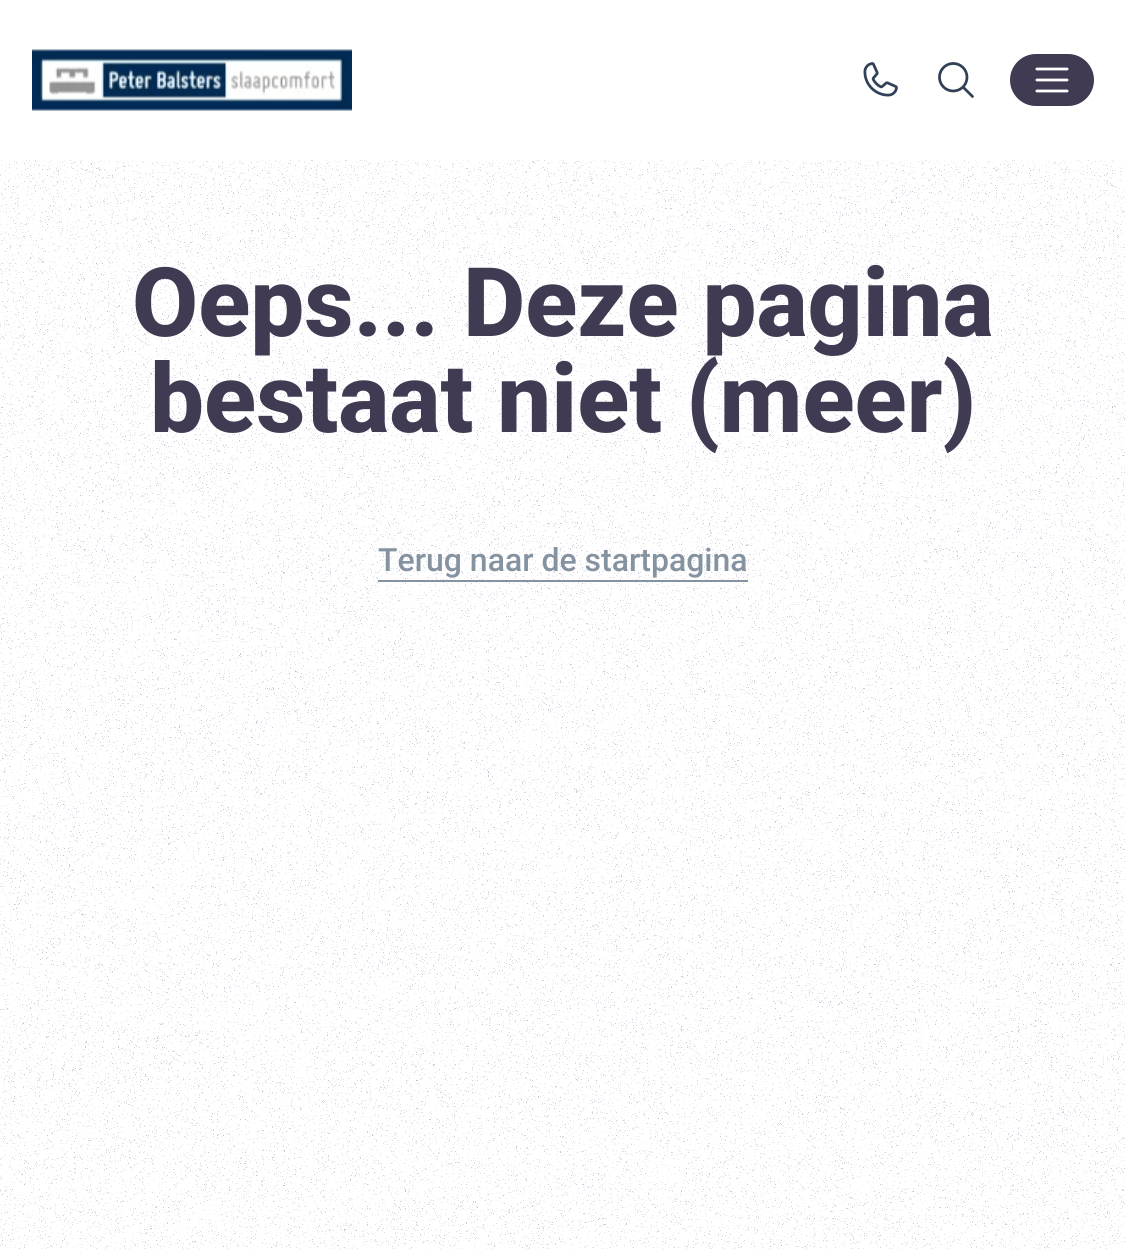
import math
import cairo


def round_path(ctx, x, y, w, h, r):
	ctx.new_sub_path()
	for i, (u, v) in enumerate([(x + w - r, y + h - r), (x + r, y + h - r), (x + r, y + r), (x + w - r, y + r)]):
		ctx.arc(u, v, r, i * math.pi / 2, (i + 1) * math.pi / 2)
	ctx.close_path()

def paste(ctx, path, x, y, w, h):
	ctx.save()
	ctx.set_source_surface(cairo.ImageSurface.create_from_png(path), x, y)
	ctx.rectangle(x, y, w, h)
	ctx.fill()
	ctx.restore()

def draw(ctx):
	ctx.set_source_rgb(1, 1, 1)
	ctx.paint()
	paste(ctx, 'media/1.png', 32, 49, 320, 62)
	paste(ctx, 'media/2.png', 863, 62, 35, 35)
	paste(ctx, 'media/3.png', 938, 62, 36, 36)
	ctx.set_source_rgb(0.251, 0.227, 0.322)
	round_path(ctx, 1012, 56, 80, 48, 24)
	ctx.fill_preserve()
	ctx.set_line_width(4)
	ctx.stroke()
	paste(ctx, 'media/4.png', 1035, 67, 34, 26)
	paste(ctx, 'media/5.png', 0, 160, 1125, 1089)
	ctx.select_font_face('Roboto ExtraBold')
	ctx.set_font_size(96)
	ctx.move_to(132, 336)
	ctx.show_text('Oeps... Deze pagina')
	ctx.move_to(150, 432)
	ctx.show_text('bestaat niet (meer)')
	ctx.select_font_face('Roboto Medium')
	ctx.set_font_size(32)
	ctx.set_source_rgb(0.522, 0.576, 0.631)
	ctx.move_to(378, 571)
	ctx.show_text('Terug naar de startpagina')
	ctx.rectangle(378, 580, 370, 2)
	ctx.fill()


surface = cairo.ImageSurface(cairo.FORMAT_RGB24, 1125, 1249)
ctx = cairo.Context(surface)
options = cairo.FontOptions()
options.set_hint_metrics(cairo.HINT_METRICS_OFF)
options.set_hint_style(cairo.HINT_STYLE_NONE)
ctx.set_font_options(options)
ctx.set_miter_limit(4)
draw(ctx)
surface.write_to_png('image.png')
